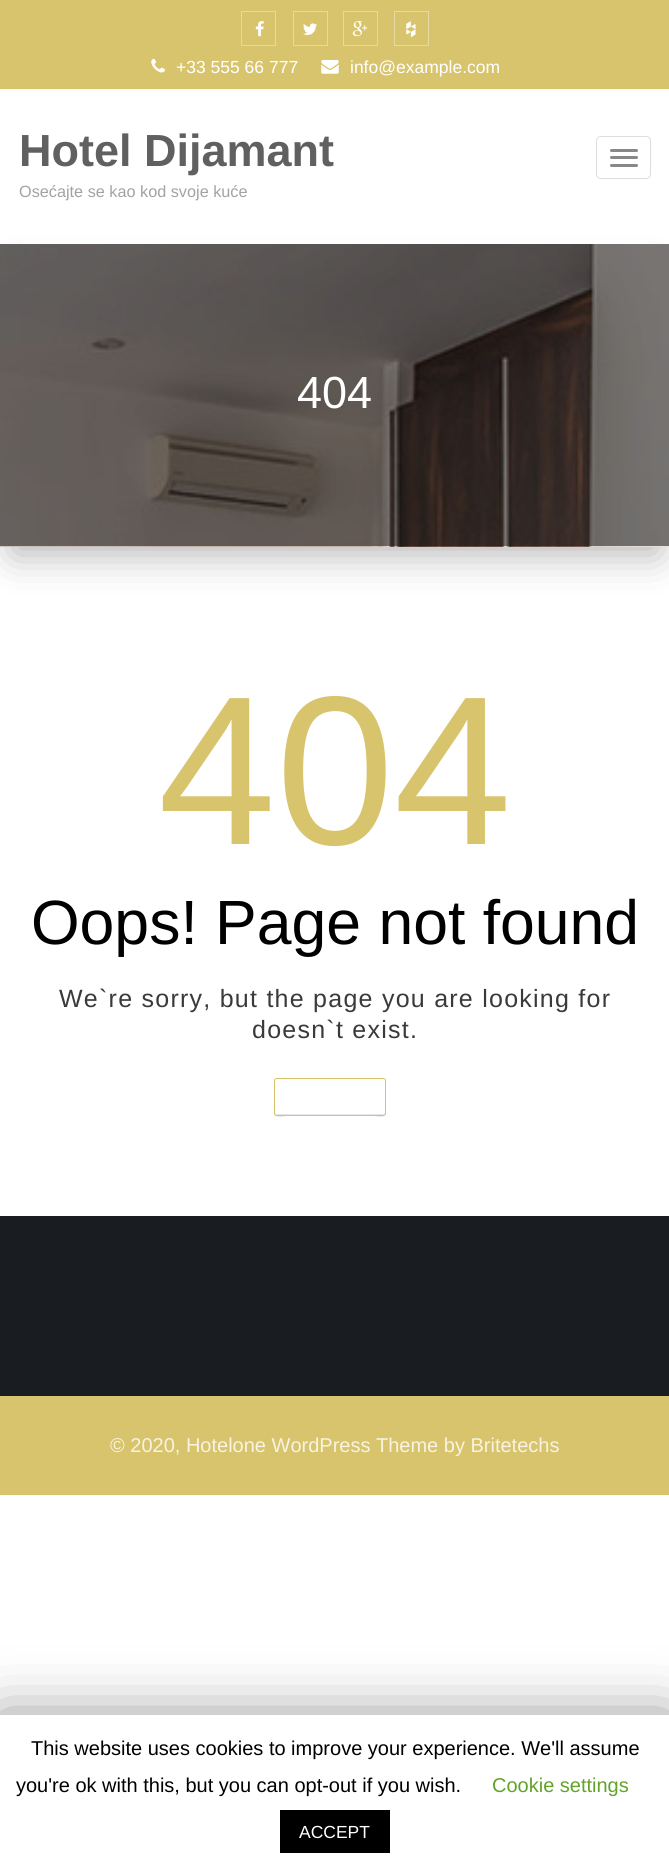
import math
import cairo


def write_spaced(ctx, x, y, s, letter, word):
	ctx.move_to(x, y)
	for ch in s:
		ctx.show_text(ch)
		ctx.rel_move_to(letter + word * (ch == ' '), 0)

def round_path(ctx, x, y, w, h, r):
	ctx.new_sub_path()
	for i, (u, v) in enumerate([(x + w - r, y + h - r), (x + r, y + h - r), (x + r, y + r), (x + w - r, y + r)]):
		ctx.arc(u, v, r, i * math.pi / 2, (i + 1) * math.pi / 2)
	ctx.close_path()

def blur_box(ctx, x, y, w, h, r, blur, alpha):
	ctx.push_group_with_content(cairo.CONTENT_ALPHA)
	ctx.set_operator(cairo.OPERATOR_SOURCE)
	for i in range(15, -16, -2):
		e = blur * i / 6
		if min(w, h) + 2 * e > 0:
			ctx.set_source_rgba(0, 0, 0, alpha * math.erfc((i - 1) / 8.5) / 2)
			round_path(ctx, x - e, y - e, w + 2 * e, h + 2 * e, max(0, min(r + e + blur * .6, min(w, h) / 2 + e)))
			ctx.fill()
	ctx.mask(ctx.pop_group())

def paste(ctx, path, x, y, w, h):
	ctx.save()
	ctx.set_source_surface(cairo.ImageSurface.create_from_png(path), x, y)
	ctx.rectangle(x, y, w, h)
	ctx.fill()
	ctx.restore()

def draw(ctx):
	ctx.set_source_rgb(1, 1, 1)
	ctx.paint()
	ctx.set_source_rgb(0.847, 0.769, 0.424)
	ctx.rectangle(0, 0, 669, 89)
	ctx.fill()
	ctx.rectangle(241.5, 11.5, 34, 34)
	ctx.set_source_rgb(0.902, 0.851, 0.631)
	ctx.set_line_width(1)
	ctx.stroke()
	paste(ctx, 'media/1.png', 255, 21, 9, 16)
	ctx.rectangle(293.5, 11.5, 34, 34)
	ctx.stroke()
	paste(ctx, 'media/2.png', 303, 23, 14, 12)
	ctx.rectangle(343.5, 11.5, 34, 34)
	ctx.stroke()
	paste(ctx, 'media/3.png', 352, 21, 16, 16)
	ctx.rectangle(394.5, 11.5, 34, 34)
	ctx.stroke()
	paste(ctx, 'media/4.png', 406, 21, 10, 17)
	paste(ctx, 'media/5.png', 151, 58, 14, 15)
	ctx.select_font_face('Liberation Sans')
	ctx.set_font_size(17.5)
	ctx.set_source_rgb(1, 1, 1)
	ctx.move_to(176, 73)
	ctx.show_text('+33 555 66 777')
	paste(ctx, 'media/6.png', 321, 60, 18, 14)
	ctx.move_to(350, 73)
	ctx.show_text('info@example.com')
	ctx.set_source_rgb(0, 0, 0)
	blur_box(ctx, 13, 276, 645, 278, 0, 19.5, 0.3)
	ctx.set_source_rgb(1, 1, 1)
	ctx.rectangle(23, 240, 625, 4)
	ctx.fill()
	ctx.select_font_face('Liberation Sans', cairo.FONT_SLANT_NORMAL, cairo.FONT_WEIGHT_BOLD)
	ctx.set_font_size(45)
	ctx.set_source_rgb(0.376, 0.376, 0.376)
	ctx.move_to(19, 166)
	ctx.show_text('Hotel Dijamant')
	ctx.select_font_face('Liberation Sans')
	ctx.set_font_size(16.25)
	ctx.set_source_rgb(0.635, 0.635, 0.635)
	ctx.move_to(19, 197)
	ctx.show_text('Osećajte se kao kod svoje kuće')
	round_path(ctx, 596.5, 136.5, 54, 42, 4.5)
	ctx.set_source_rgb(0.867, 0.867, 0.867)
	ctx.stroke()
	ctx.set_source_rgb(0.533, 0.533, 0.533)
	round_path(ctx, 610, 149, 28, 3, 1.5)
	ctx.fill()
	round_path(ctx, 610, 156, 28, 3, 1.5)
	ctx.fill()
	round_path(ctx, 610, 164, 28, 3, 1.5)
	ctx.fill()
	paste(ctx, 'media/7.png', 0, 244, 669, 303)
	ctx.set_font_size(45)
	ctx.set_source_rgb(1, 1, 1)
	ctx.move_to(297, 408)
	ctx.show_text('404')
	ctx.set_font_size(212)
	ctx.set_source_rgb(0.847, 0.769, 0.424)
	ctx.move_to(158, 844)
	ctx.show_text('404')
	ctx.set_font_size(62.5)
	ctx.set_source_rgb(0, 0, 0)
	ctx.move_to(31, 944)
	ctx.show_text('Oops! Page not found')
	ctx.set_font_size(25)
	ctx.set_source_rgb(0.227, 0.227, 0.227)
	write_spaced(ctx, 59, 1007, 'We`re sorry, but the page you are looking for', 1.25, 0)
	write_spaced(ctx, 252, 1038, 'doesn`t exist.', 1.25, 0)
	ctx.set_source_rgb(0.902, 0.902, 0.902)
	ctx.new_path()
	ctx.move_to(275, 1112)
	ctx.curve_to(275, 1121, 284, 1115, 294, 1115)
	ctx.line_to(366, 1115)
	ctx.curve_to(376, 1115, 385, 1121, 385, 1112)
	ctx.line_to(384, 1114)
	ctx.line_to(276, 1114)
	ctx.close_path()
	ctx.fill()
	round_path(ctx, 274.5, 1078.5, 111, 37, 2)
	ctx.set_source_rgb(0.847, 0.769, 0.424)
	ctx.stroke()
	ctx.set_source_rgb(0.098, 0.11, 0.129)
	ctx.rectangle(0, 1216, 669, 180)
	ctx.fill()
	ctx.set_source_rgb(0.847, 0.769, 0.424)
	ctx.rectangle(0, 1396, 669, 99)
	ctx.fill()
	ctx.set_font_size(20)
	ctx.set_source_rgb(0.969, 0.953, 0.886)
	ctx.move_to(110, 1452)
	ctx.show_text('© 2020, Hotelone WordPress Theme by Britetechs')
	ctx.set_source_rgb(0, 0, 0)
	blur_box(ctx, 0, 1721, 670, 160, 0, 31, 0.5)
	ctx.set_source_rgb(1, 1, 1)
	ctx.rectangle(0, 1715, 669, 160)
	ctx.fill()
	ctx.set_source_rgb(0, 0, 0)
	ctx.move_to(31, 1755)
	ctx.show_text('This website uses cookies to improve your experience. We\'ll assume')
	ctx.move_to(16, 1792)
	ctx.show_text('you\'re ok with this, but you can opt-out if you wish.')
	ctx.set_source_rgb(0.384, 0.639, 0.161)
	ctx.move_to(492, 1792)
	ctx.show_text('Cookie settings')
	ctx.set_source_rgb(0, 0, 0)
	ctx.rectangle(280, 1810, 110, 43)
	ctx.fill()
	ctx.set_font_size(17.5)
	ctx.set_source_rgb(1, 1, 1)
	ctx.move_to(299, 1838)
	ctx.show_text('ACCEPT')


surface = cairo.ImageSurface(cairo.FORMAT_RGB24, 669, 1875)
ctx = cairo.Context(surface)
options = cairo.FontOptions()
options.set_hint_metrics(cairo.HINT_METRICS_OFF)
options.set_hint_style(cairo.HINT_STYLE_NONE)
ctx.set_font_options(options)
ctx.set_miter_limit(4)
draw(ctx)
surface.write_to_png('image.png')
